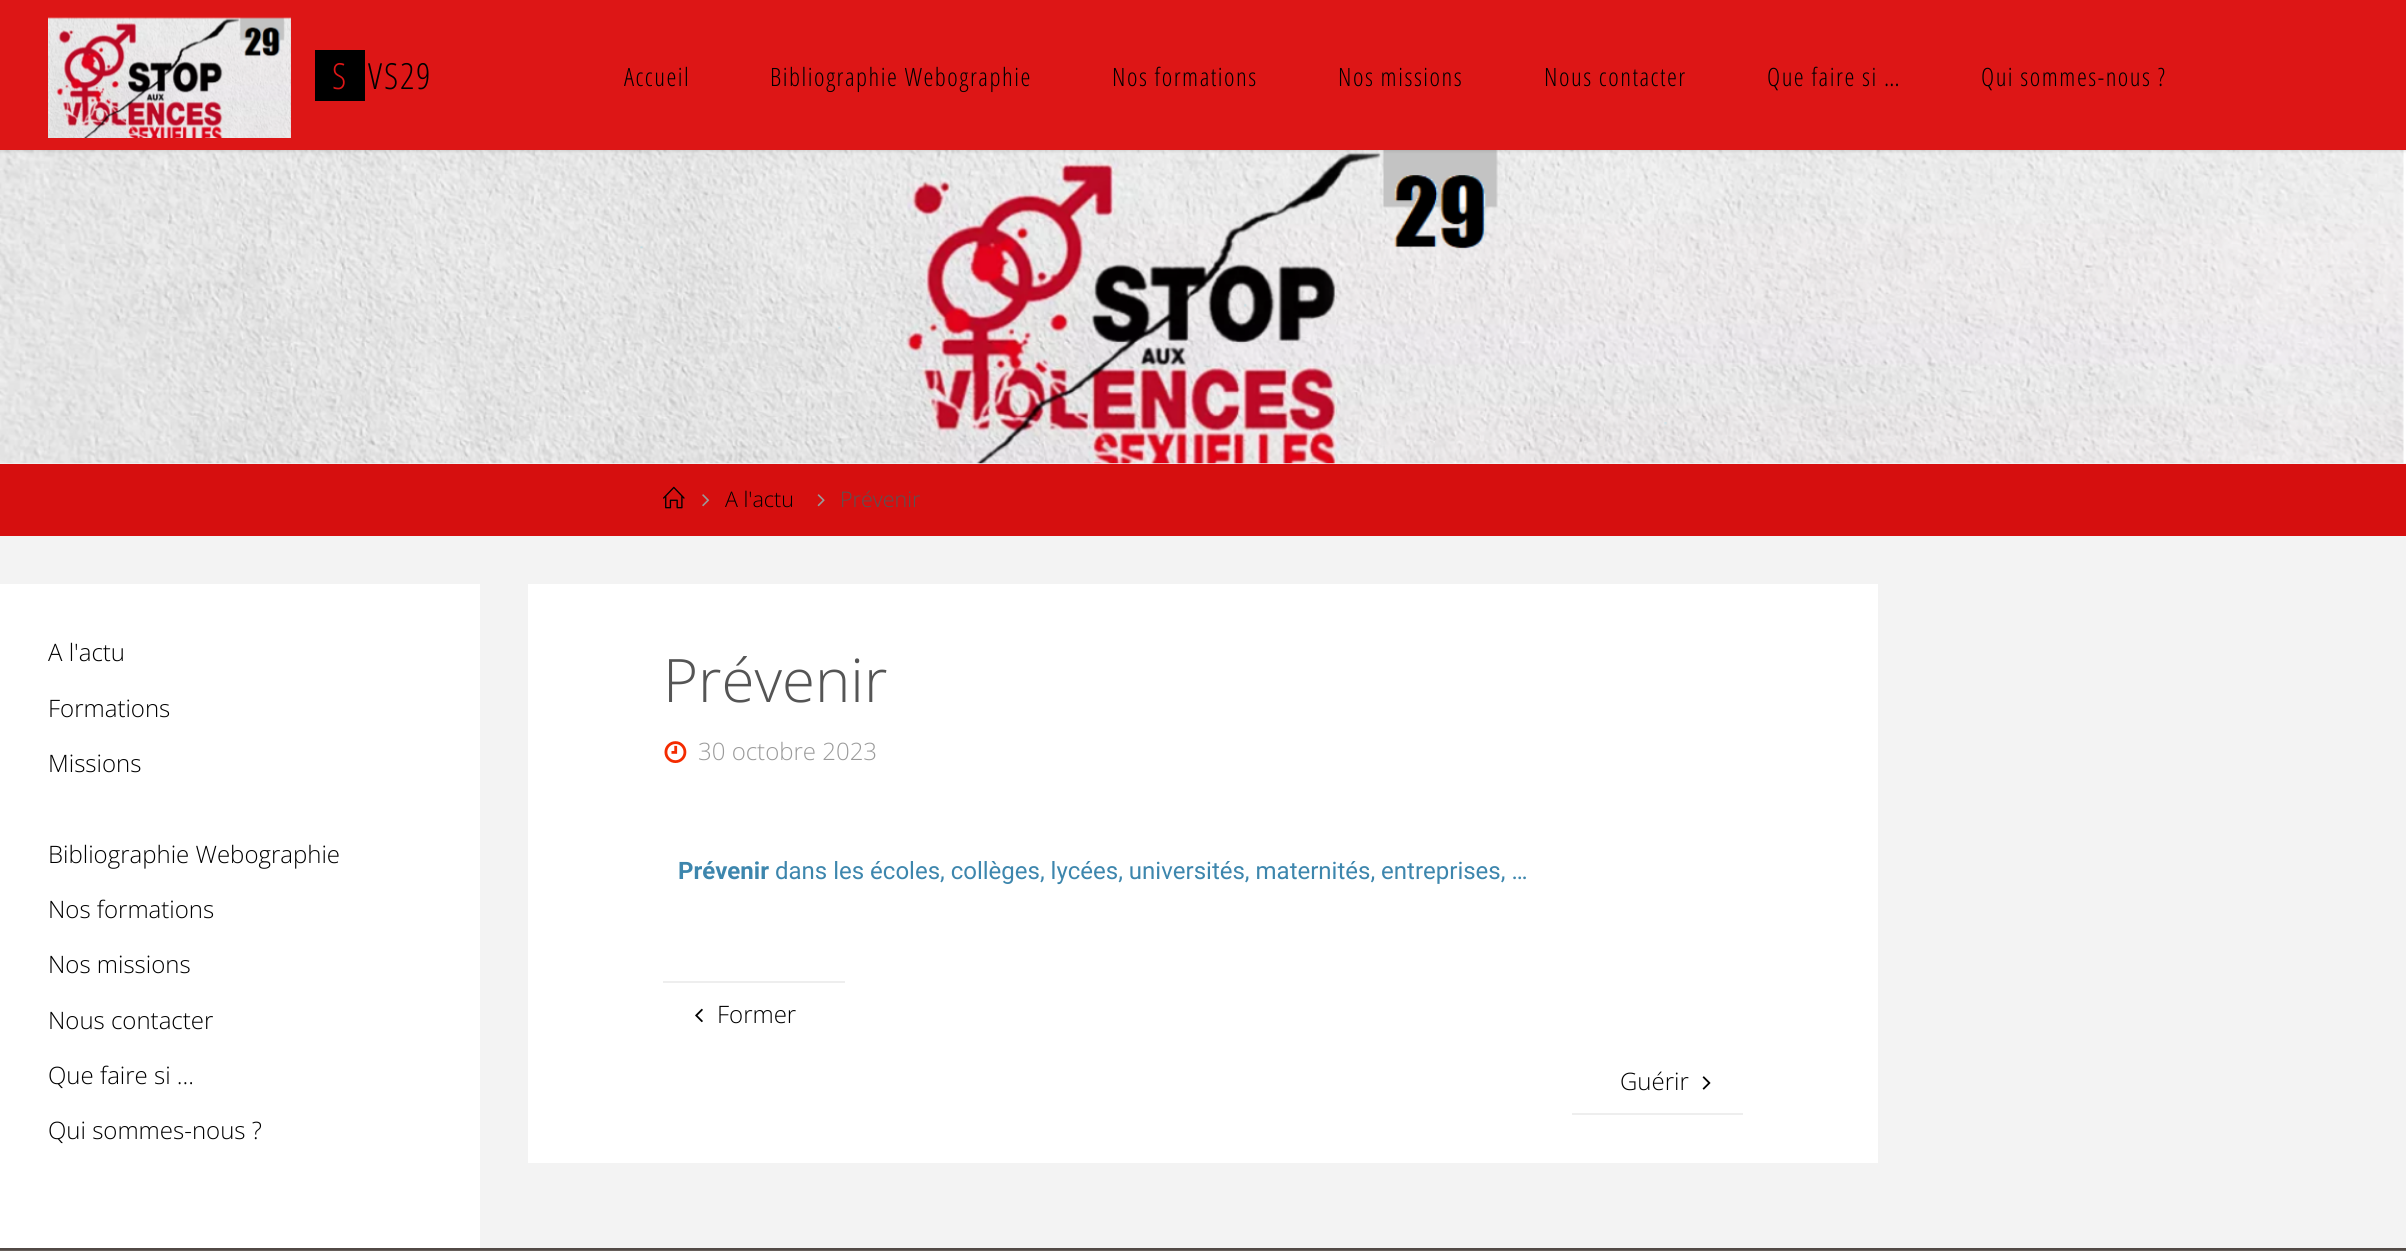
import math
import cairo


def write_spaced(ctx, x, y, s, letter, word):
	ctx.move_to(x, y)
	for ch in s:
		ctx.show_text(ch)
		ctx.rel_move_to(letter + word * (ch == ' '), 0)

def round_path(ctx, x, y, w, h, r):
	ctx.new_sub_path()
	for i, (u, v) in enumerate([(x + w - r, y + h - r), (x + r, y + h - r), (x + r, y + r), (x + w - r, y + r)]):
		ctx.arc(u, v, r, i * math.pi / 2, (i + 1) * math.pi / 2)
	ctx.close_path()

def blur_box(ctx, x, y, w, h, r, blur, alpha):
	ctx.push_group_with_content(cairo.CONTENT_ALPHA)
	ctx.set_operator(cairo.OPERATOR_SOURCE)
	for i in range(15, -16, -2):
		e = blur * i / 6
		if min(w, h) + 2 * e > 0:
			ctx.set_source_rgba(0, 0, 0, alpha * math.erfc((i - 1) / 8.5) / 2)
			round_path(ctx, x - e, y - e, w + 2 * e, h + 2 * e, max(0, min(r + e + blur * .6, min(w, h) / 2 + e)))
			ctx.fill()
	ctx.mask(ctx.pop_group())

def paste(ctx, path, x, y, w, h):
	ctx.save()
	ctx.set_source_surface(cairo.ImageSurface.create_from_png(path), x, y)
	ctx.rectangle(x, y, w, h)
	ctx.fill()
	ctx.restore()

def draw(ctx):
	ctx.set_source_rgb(0.953, 0.953, 0.953)
	ctx.paint()
	paste(ctx, 'media/2.png', 0, 150, 2406, 314)
	ctx.set_source_rgb(0, 0, 0)
	blur_box(ctx, 0, 0, 2406, 150, 0, 2, 0.2)
	ctx.set_source_rgb(0.867, 0.086, 0.086)
	ctx.rectangle(0, 0, 2406, 150)
	ctx.fill()
	paste(ctx, 'media/1.png', 48, 17, 243, 121)
	ctx.set_source_rgb(0, 0, 0)
	ctx.rectangle(315, 50, 50, 51)
	ctx.fill()
	ctx.select_font_face('Open Sans Condensed Light')
	ctx.set_font_size(36)
	ctx.set_source_rgb(0.867, 0.086, 0.086)
	ctx.move_to(332, 89)
	ctx.show_text('S')
	ctx.set_source_rgb(0, 0, 0)
	for x, y, s in [
		(368, 89, 'V'),
		(384, 89, 'S'),
		(400, 89, '2'),
		(416, 89, '9'),
	]:
		ctx.move_to(x, y)
		ctx.show_text(s)
	ctx.set_font_size(25.25)
	for x, y, s in [
		(624, 86, 'Accueil'),
		(770, 86, 'Bibliographie Webographie'),
		(1112, 86, 'Nos formations'),
		(1338, 86, 'Nos missions'),
		(1544, 86, 'Nous contacter'),
		(1767, 86, 'Que faire si …'),
		(1981, 86, 'Qui sommes-nous ?'),
	]:
		write_spaced(ctx, x, y, s, 1.5, 0)
	ctx.set_source_rgb(0.839, 0.059, 0.059)
	ctx.rectangle(0, 464, 2406, 72)
	ctx.fill()
	paste(ctx, 'media/3.png', 663, 486, 22, 23)
	paste(ctx, 'media/4.png', 702, 494, 8, 13)
	ctx.select_font_face('Open Sans Light')
	ctx.set_font_size(21.5)
	ctx.set_source_rgb(0, 0, 0)
	ctx.move_to(725, 507)
	ctx.show_text('A l\'actu')
	paste(ctx, 'media/5.png', 817, 494, 8, 13)
	ctx.set_source_rgb(0.333, 0.333, 0.333)
	ctx.move_to(840, 507)
	ctx.show_text('Prévenir')
	ctx.set_source_rgb(1, 1, 1)
	ctx.rectangle(0, 584, 480, 664)
	ctx.fill()
	ctx.set_font_size(24)
	ctx.set_source_rgb(0, 0, 0)
	for x, y, s in [
		(48, 661, 'A l\'actu'),
		(48, 717, 'Formations'),
		(48, 772, 'Missions'),
		(48, 863, 'Bibliographie Webographie'),
		(48, 918, 'Nos formations'),
		(48, 973, 'Nos missions'),
		(48, 1029, 'Nous contacter'),
		(48, 1084, 'Que faire si ...'),
		(48, 1139, 'Qui sommes-nous ?'),
	]:
		ctx.move_to(x, y)
		ctx.show_text(s)
	ctx.set_source_rgb(1, 1, 1)
	ctx.rectangle(528, 584, 1350, 579)
	ctx.fill()
	ctx.set_font_size(60)
	ctx.set_source_rgb(0.333, 0.333, 0.333)
	ctx.move_to(663, 702)
	ctx.show_text('Prévenir')
	paste(ctx, 'media/6.png', 664, 741, 23, 22)
	ctx.set_font_size(24)
	ctx.set_source_rgb(0.604, 0.604, 0.604)
	ctx.move_to(698, 760)
	ctx.show_text('30 octobre 2023')
	ctx.select_font_face('Roboto', cairo.FONT_SLANT_NORMAL, cairo.FONT_WEIGHT_BOLD)
	ctx.set_source_rgb(0.239, 0.525, 0.678)
	ctx.move_to(678, 879)
	ctx.show_text('Prévenir')
	ctx.select_font_face('Roboto')
	ctx.move_to(775, 879)
	ctx.show_text('dans les écoles, collèges, lycées, universités, maternités, entreprises, …')
	ctx.set_source_rgb(0.933, 0.933, 0.933)
	ctx.rectangle(663, 981, 182, 2)
	ctx.fill()
	paste(ctx, 'media/7.png', 695, 1008, 8, 15)
	ctx.select_font_face('Open Sans Light')
	ctx.set_source_rgb(0, 0, 0)
	ctx.move_to(717, 1023)
	ctx.show_text('Former')
	ctx.move_to(1620, 1090)
	ctx.show_text('Guérir')
	paste(ctx, 'media/8.png', 1702, 1076, 9, 14)
	ctx.set_source_rgb(0.933, 0.933, 0.933)
	ctx.rectangle(1572, 1113, 171, 2)
	ctx.fill()
	ctx.set_source_rgb(0.4, 0.369, 0.353)
	ctx.rectangle(0, 1250, 2406, 1)
	ctx.fill()
	ctx.set_source_rgb(0.322, 0.29, 0.275)
	ctx.rectangle(0, 1248, 2406, 2)
	ctx.fill()


surface = cairo.ImageSurface(cairo.FORMAT_RGB24, 2406, 1251)
ctx = cairo.Context(surface)
options = cairo.FontOptions()
options.set_hint_metrics(cairo.HINT_METRICS_OFF)
options.set_hint_style(cairo.HINT_STYLE_NONE)
ctx.set_font_options(options)
ctx.set_miter_limit(4)
draw(ctx)
surface.write_to_png('image.png')
